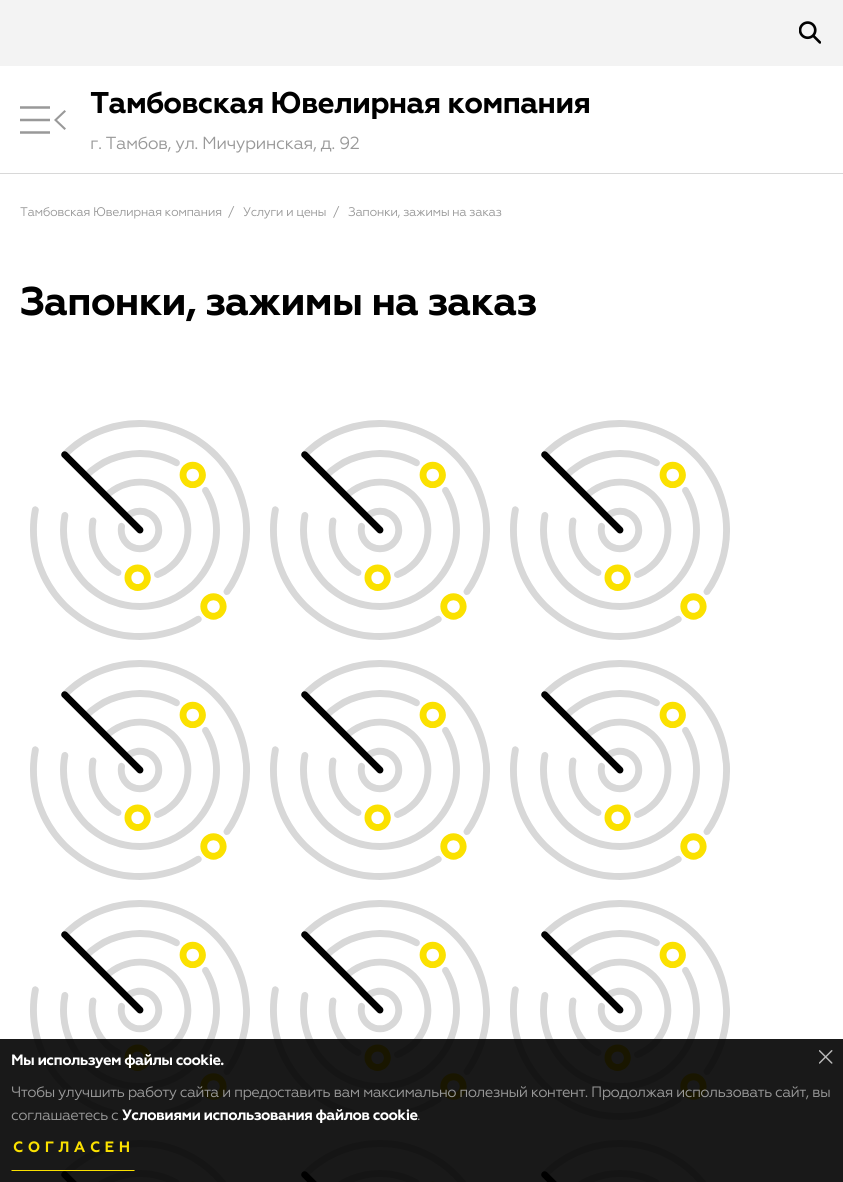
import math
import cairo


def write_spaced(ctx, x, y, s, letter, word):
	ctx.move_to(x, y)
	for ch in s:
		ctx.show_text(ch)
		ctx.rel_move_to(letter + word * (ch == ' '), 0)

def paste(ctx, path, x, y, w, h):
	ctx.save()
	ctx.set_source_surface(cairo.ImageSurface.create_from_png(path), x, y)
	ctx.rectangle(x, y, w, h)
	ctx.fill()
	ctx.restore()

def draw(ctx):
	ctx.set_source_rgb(1, 1, 1)
	ctx.paint()
	ctx.set_source_rgb(0.953, 0.953, 0.953)
	ctx.rectangle(0, 0, 843, 66)
	ctx.fill()
	paste(ctx, 'media/1.png', 799, 21, 22, 23)
	ctx.set_source_rgb(0.847, 0.847, 0.847)
	ctx.rectangle(0, 173, 843, 1)
	ctx.fill()
	paste(ctx, 'media/2.png', 20, 106, 30, 28)
	ctx.set_source_rgb(0.6, 0.6, 0.6)
	ctx.new_path()
	ctx.move_to(66, 111.5)
	ctx.line_to(64.5, 110)
	ctx.line_to(54, 120)
	ctx.line_to(64.5, 130)
	ctx.line_to(66, 128.5)
	ctx.line_to(57, 120)
	ctx.close_path()
	ctx.fill()
	ctx.select_font_face('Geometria', cairo.FONT_SLANT_NORMAL, cairo.FONT_WEIGHT_BOLD)
	ctx.set_font_size(30)
	ctx.set_source_rgb(0, 0, 0)
	write_spaced(ctx, 90, 113, 'Тамбовская Ювелирная компания', -0.9, 0)
	ctx.select_font_face('Geometria')
	ctx.set_font_size(17.5)
	ctx.set_source_rgb(0.6, 0.6, 0.6)
	write_spaced(ctx, 90, 149, 'г. Тамбов, ул. Мичуринская, д. 92', -0.55, 0)
	ctx.set_font_size(12.5)
	for x, y, s in [
		(20, 216, 'Тамбовская Ювелирная компания'),
		(228, 216, '/'),
		(243, 216, 'Услуги и цены'),
		(333, 216, '/'),
		(348, 216, 'Запонки, зажимы на заказ'),
	]:
		write_spaced(ctx, x, y, s, -0.45, 0)
	ctx.select_font_face('Geometria', cairo.FONT_SLANT_NORMAL, cairo.FONT_WEIGHT_BOLD)
	ctx.set_font_size(40)
	ctx.set_source_rgb(0, 0, 0)
	write_spaced(ctx, 20, 315, 'Запонки, зажимы на заказ', -1.1, 0)
	paste(ctx, 'media/3.png', 30, 420, 220, 220)
	paste(ctx, 'media/3.png', 270, 420, 220, 220)
	paste(ctx, 'media/3.png', 510, 420, 220, 220)
	paste(ctx, 'media/4.png', 30, 660, 220, 220)
	paste(ctx, 'media/4.png', 270, 660, 220, 220)
	paste(ctx, 'media/4.png', 510, 660, 220, 220)
	paste(ctx, 'media/5.png', 30, 900, 220, 220)
	paste(ctx, 'media/5.png', 270, 900, 220, 220)
	paste(ctx, 'media/5.png', 510, 900, 220, 220)
	paste(ctx, 'media/6.png', 61, 1140, 165, 42)
	paste(ctx, 'media/6.png', 301, 1140, 165, 42)
	paste(ctx, 'media/6.png', 541, 1140, 165, 42)
	ctx.set_source_rgba(0, 0, 0, 0.9)
	ctx.rectangle(0, 1039, 843, 143)
	ctx.fill()
	ctx.set_font_size(15)
	ctx.set_source_rgb(1, 1, 1)
	write_spaced(ctx, 11, 1065, 'Мы используем файлы cookie.', -0.62, 0)
	paste(ctx, 'media/7.png', 819, 1050, 14, 14)
	ctx.select_font_face('Geometria')
	ctx.set_source_rgb(0.6, 0.6, 0.6)
	write_spaced(ctx, 11, 1097, 'Чтобы улучшить работу сайта и предоставить вам максимально полезный контент. Продолжая использовать сайт, вы', -0.62, 0)
	write_spaced(ctx, 11, 1120, 'соглашаетесь с', -0.62, 0)
	ctx.select_font_face('Geometria', cairo.FONT_SLANT_NORMAL, cairo.FONT_WEIGHT_BOLD)
	ctx.set_source_rgb(1, 1, 1)
	write_spaced(ctx, 122, 1120, 'Условиями использования файлов cookie', -0.62, 0)
	ctx.select_font_face('Geometria')
	ctx.set_source_rgb(0.6, 0.6, 0.6)
	write_spaced(ctx, 417, 1120, '.', -0.62, 0)
	ctx.set_source_rgb(0.984, 0.882, 0)
	ctx.new_path()
	ctx.move_to(135, 1171)
	ctx.line_to(11, 1171)
	ctx.line_to(12, 1170)
	ctx.line_to(134, 1170)
	ctx.close_path()
	ctx.fill()
	ctx.select_font_face('Geometria', cairo.FONT_SLANT_NORMAL, cairo.FONT_WEIGHT_BOLD)
	write_spaced(ctx, 13, 1152, 'СОГЛАСЕН', 4.5, 0)


surface = cairo.ImageSurface(cairo.FORMAT_RGB24, 843, 1182)
ctx = cairo.Context(surface)
options = cairo.FontOptions()
options.set_hint_metrics(cairo.HINT_METRICS_OFF)
options.set_hint_style(cairo.HINT_STYLE_NONE)
ctx.set_font_options(options)
ctx.set_miter_limit(4)
draw(ctx)
surface.write_to_png('image.png')
